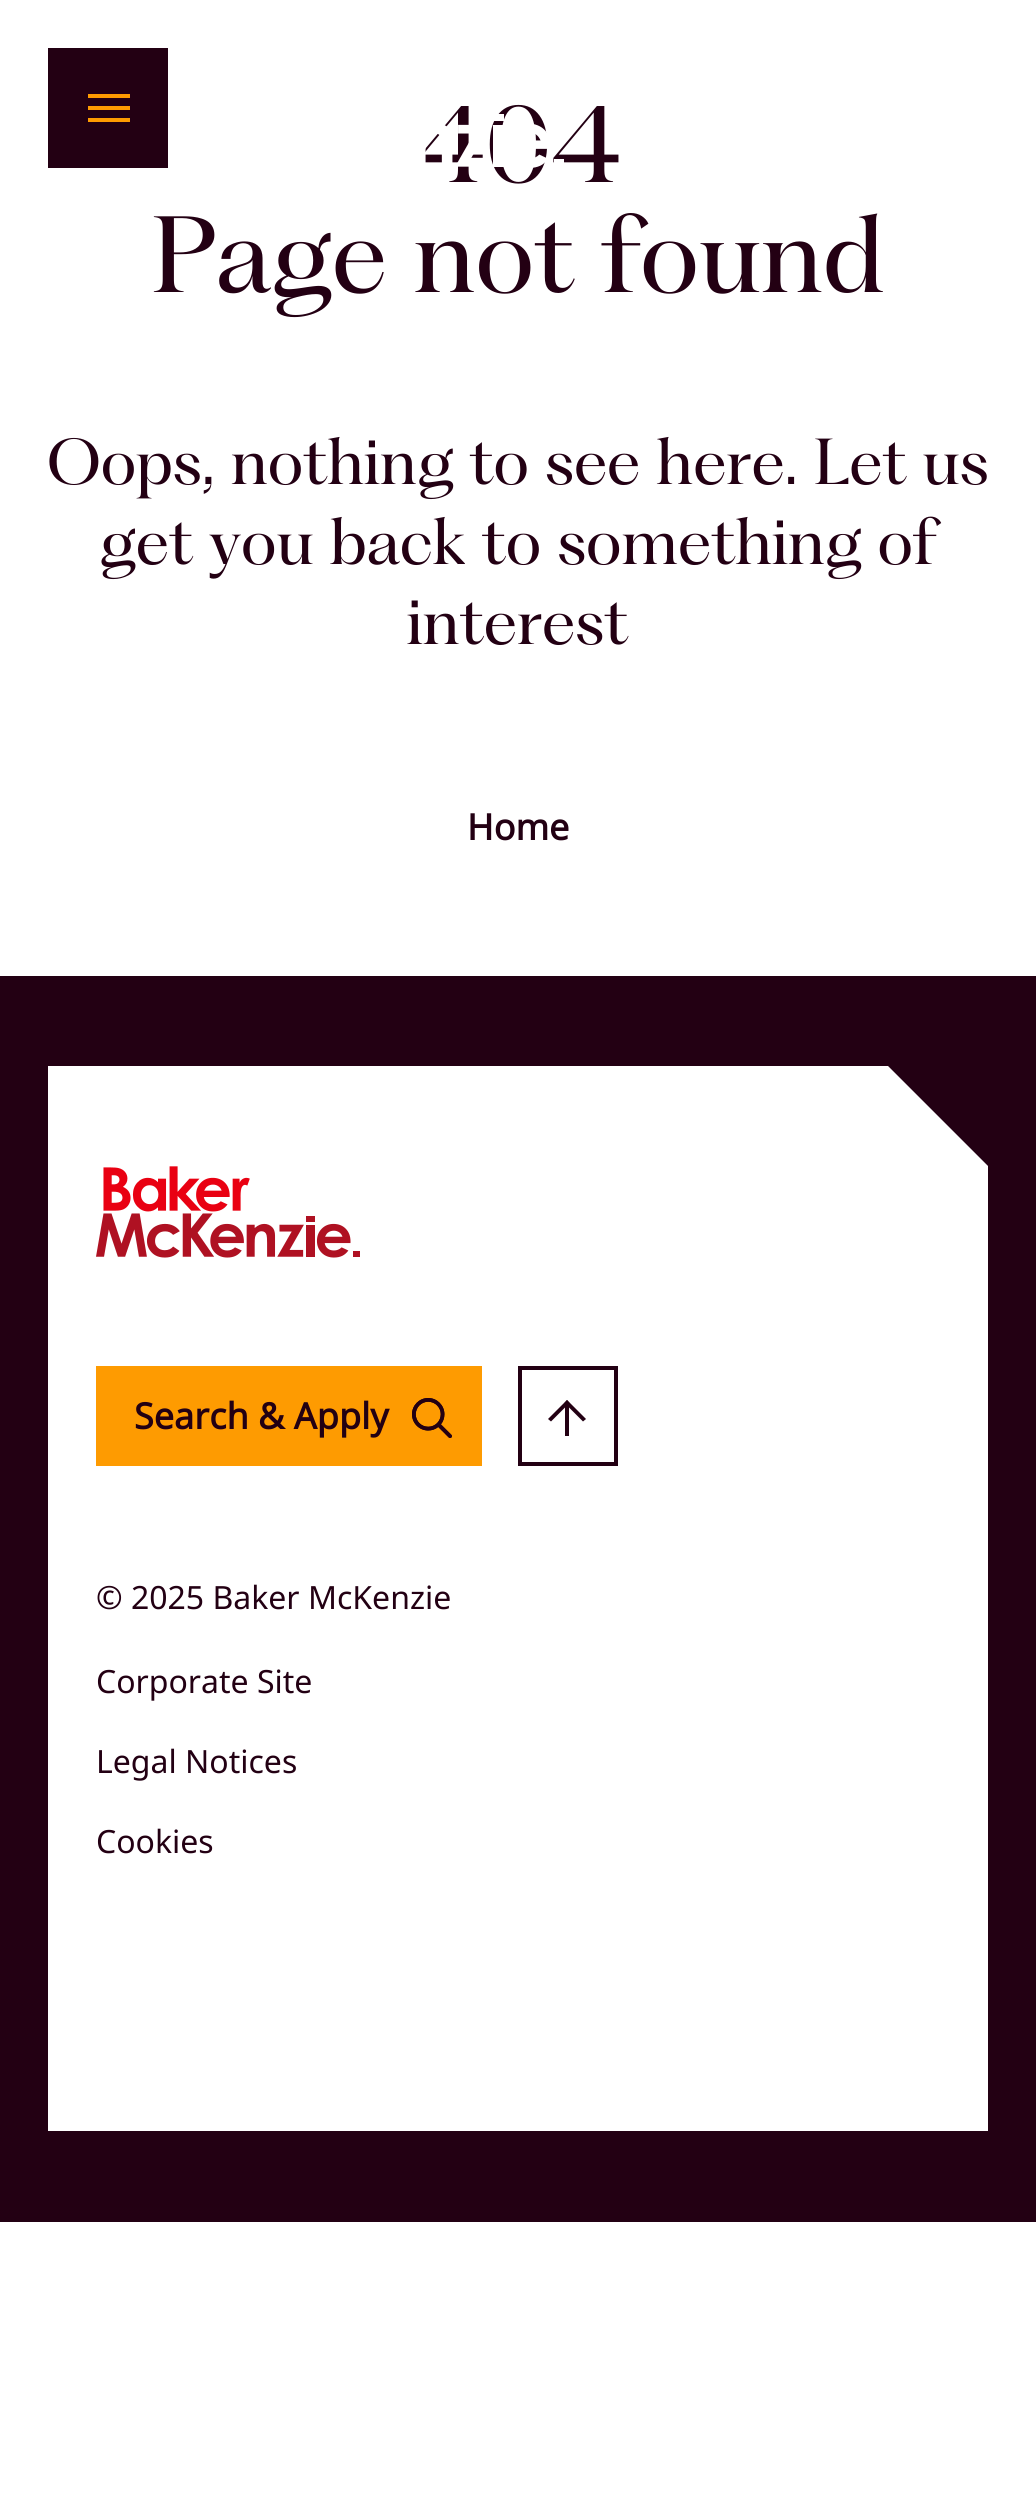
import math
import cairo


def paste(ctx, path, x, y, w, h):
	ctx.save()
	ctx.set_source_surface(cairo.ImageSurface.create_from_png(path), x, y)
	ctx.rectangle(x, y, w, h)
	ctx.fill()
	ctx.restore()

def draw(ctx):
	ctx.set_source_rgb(1, 1, 1)
	ctx.paint()
	ctx.set_source_rgb(0.137, 0, 0.075)
	ctx.rectangle(48, 48, 120, 120)
	ctx.fill()
	ctx.set_source_rgb(0.996, 0.608, 0.004)
	ctx.rectangle(88, 94, 42, 4)
	ctx.rectangle(88, 106, 42, 4)
	ctx.rectangle(88, 118, 42, 4)
	ctx.fill()
	ctx.select_font_face('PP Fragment')
	ctx.set_font_size(100)
	ctx.set_source_rgb(0.137, 0, 0.075)
	ctx.move_to(416, 182)
	ctx.show_text('404')
	ctx.move_to(151, 292)
	ctx.show_text('Page not found')
	ctx.set_font_size(60)
	for x, y, s in [
		(47, 484, 'Oops, nothing to see here. Let us'),
		(99, 564, 'get you back to something of'),
		(407, 644, 'interest'),
	]:
		ctx.move_to(x, y)
		ctx.show_text(s)
	ctx.select_font_face('Noto Sans', cairo.FONT_SLANT_NORMAL, cairo.FONT_WEIGHT_BOLD)
	ctx.set_font_size(36)
	ctx.move_to(467, 840)
	ctx.show_text('Home')
	paste(ctx, 'media/1.png', 417, 114, 147, 54)
	ctx.rectangle(0, 976, 1036, 1246)
	ctx.fill()
	ctx.set_source_rgb(1, 1, 1)
	ctx.new_path()
	ctx.move_to(48, 1066)
	ctx.line_to(48, 2131)
	ctx.line_to(988, 2131)
	ctx.line_to(988, 1166)
	ctx.line_to(888, 1066)
	ctx.close_path()
	ctx.fill()
	paste(ctx, 'media/2.png', 96, 1166, 264, 92)
	ctx.set_source_rgb(0.996, 0.608, 0.004)
	ctx.rectangle(96, 1366, 386, 100)
	ctx.fill()
	paste(ctx, 'media/3.png', 412, 1398, 40, 40)
	ctx.set_source_rgb(0.137, 0, 0.075)
	ctx.move_to(134, 1429)
	ctx.show_text('Search & Apply')
	paste(ctx, 'media/4.png', 412, 1398, 40, 40)
	ctx.rectangle(520, 1368, 96, 96)
	ctx.set_line_width(4)
	ctx.stroke()
	ctx.new_path()
	ctx.move_to(564.5, 1403)
	ctx.line_to(567, 1400)
	ctx.line_to(586, 1419)
	ctx.line_to(583, 1421.5)
	ctx.close_path()
	ctx.fill()
	ctx.rectangle(565, 1404, 4, 32)
	ctx.fill()
	ctx.new_path()
	ctx.move_to(567, 1400)
	ctx.line_to(569.5, 1403)
	ctx.line_to(551, 1421.5)
	ctx.line_to(548, 1419)
	ctx.close_path()
	ctx.fill()
	ctx.select_font_face('Noto Sans')
	ctx.set_font_size(32)
	for x, y, s in [
		(96, 1609, '© 2025 Baker McKenzie'),
		(96, 1693, 'Corporate Site'),
		(96, 1773, 'Legal Notices'),
		(96, 1853, 'Cookies'),
	]:
		ctx.move_to(x, y)
		ctx.show_text(s)


surface = cairo.ImageSurface(cairo.FORMAT_RGB24, 1036, 2504)
ctx = cairo.Context(surface)
options = cairo.FontOptions()
options.set_hint_metrics(cairo.HINT_METRICS_OFF)
options.set_hint_style(cairo.HINT_STYLE_NONE)
ctx.set_font_options(options)
ctx.set_miter_limit(4)
draw(ctx)
surface.write_to_png('image.png')
